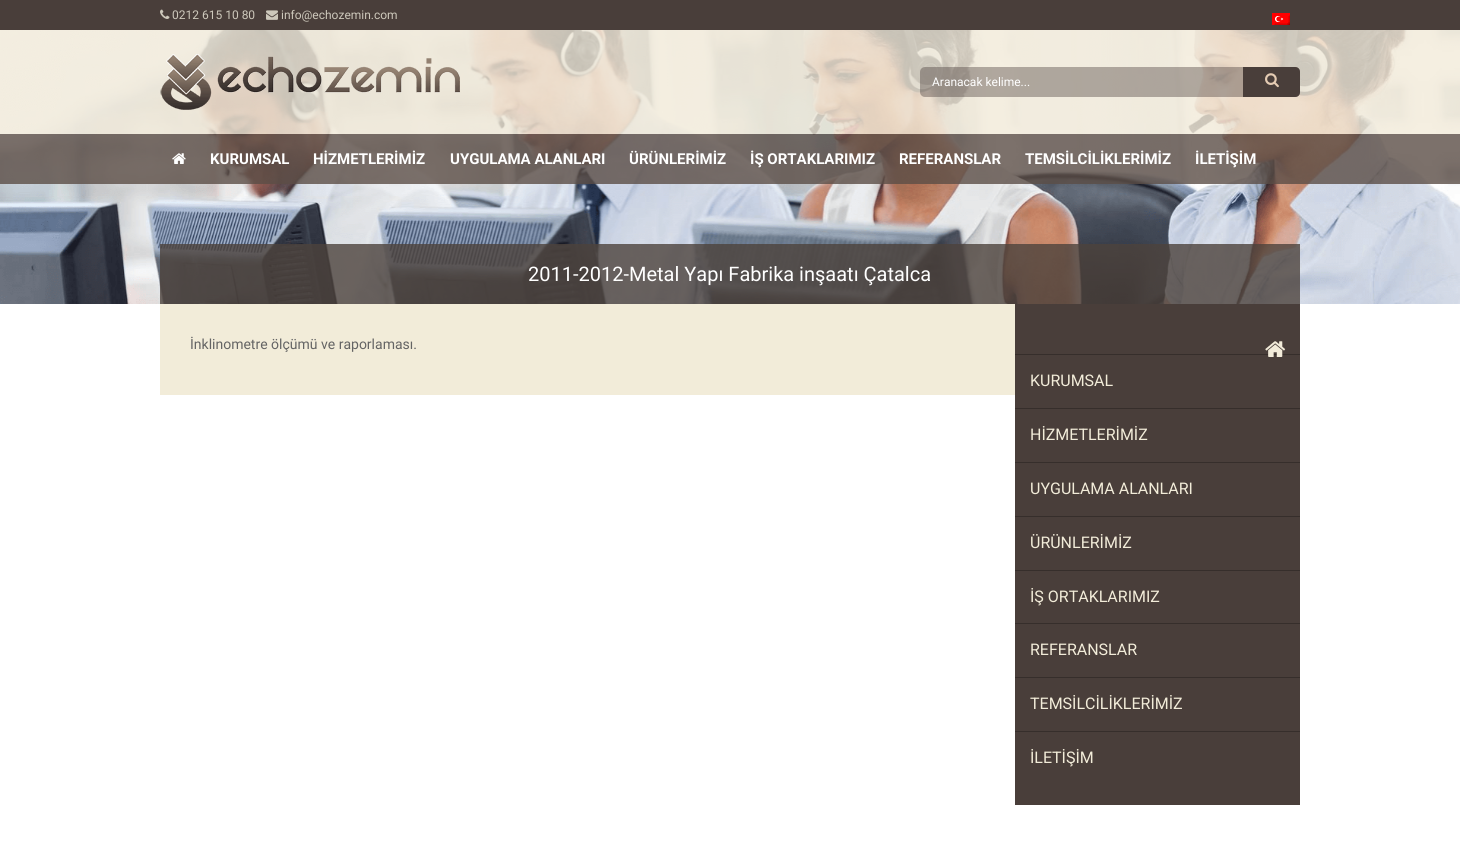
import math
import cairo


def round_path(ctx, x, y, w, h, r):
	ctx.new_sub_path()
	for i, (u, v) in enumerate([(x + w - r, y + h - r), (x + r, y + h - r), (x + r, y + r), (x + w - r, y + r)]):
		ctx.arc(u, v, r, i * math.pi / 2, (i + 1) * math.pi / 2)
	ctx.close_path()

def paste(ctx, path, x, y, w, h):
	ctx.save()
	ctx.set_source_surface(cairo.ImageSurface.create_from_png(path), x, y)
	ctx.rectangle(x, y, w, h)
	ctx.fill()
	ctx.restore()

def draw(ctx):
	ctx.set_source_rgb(1, 1, 1)
	ctx.paint()
	ctx.set_source_rgb(0.286, 0.243, 0.227)
	ctx.rectangle(0, 0, 1460, 30)
	ctx.fill()
	paste(ctx, 'media/1.png', 160, 9, 10, 10)
	ctx.select_font_face('Roboto')
	ctx.set_font_size(12)
	ctx.set_source_rgb(0.804, 0.784, 0.733)
	ctx.move_to(172, 19)
	ctx.show_text('0212 615 10 80')
	paste(ctx, 'media/2.png', 266, 10, 12, 10)
	ctx.move_to(281, 19)
	ctx.show_text('info@echozemin.com')
	paste(ctx, 'media/3.png', 1272, 13, 18, 12)
	paste(ctx, 'media/7.png', 0, 30, 1460, 274)
	ctx.set_source_rgba(0.949, 0.922, 0.851, 0.8)
	ctx.rectangle(0, 30, 1460, 104)
	ctx.fill()
	paste(ctx, 'media/4.png', 160, 54, 300, 56)
	ctx.set_source_rgba(0.286, 0.243, 0.227, 0.4)
	round_path(ctx, 920, 67, 380, 30, 5)
	ctx.fill()
	ctx.set_source_rgb(1, 1, 1)
	ctx.move_to(932, 86)
	ctx.show_text('Aranacak kelime...')
	ctx.set_source_rgb(0.286, 0.243, 0.227)
	ctx.new_path()
	ctx.move_to(1243, 67)
	ctx.line_to(1295, 67)
	ctx.curve_to(1298, 67, 1300, 69, 1300, 72)
	ctx.line_to(1300, 92)
	ctx.curve_to(1300, 95, 1298, 97, 1295, 97)
	ctx.line_to(1243, 97)
	ctx.close_path()
	ctx.fill()
	paste(ctx, 'media/5.png', 1265, 73, 14, 15)
	ctx.set_source_rgba(0.361, 0.306, 0.278, 0.8)
	ctx.rectangle(0, 134, 1460, 50)
	ctx.fill()
	paste(ctx, 'media/6.png', 172, 153, 14, 11)
	ctx.select_font_face('Roboto', cairo.FONT_SLANT_NORMAL, cairo.FONT_WEIGHT_BOLD)
	ctx.set_font_size(15)
	ctx.set_source_rgb(1, 1, 1)
	for x, y, s in [
		(210, 164, 'KURUMSAL'),
		(313, 164, 'HİZMETLERİMİZ'),
		(450, 164, 'UYGULAMA ALANLARI'),
		(629, 164, 'ÜRÜNLERİMİZ'),
		(750, 164, 'İŞ ORTAKLARIMIZ'),
		(899, 164, 'REFERANSLAR'),
		(1025, 164, 'TEMSİLCİLİKLERİMİZ'),
		(1195, 164, 'İLETİŞİM'),
	]:
		ctx.move_to(x, y)
		ctx.show_text(s)
	ctx.set_source_rgba(0.302, 0.259, 0.239, 0.8)
	ctx.rectangle(160, 244, 1140, 60)
	ctx.fill()
	ctx.select_font_face('Roboto')
	ctx.set_font_size(20)
	ctx.set_source_rgb(1, 1, 1)
	ctx.move_to(528, 281)
	ctx.show_text('2011-2012-Metal Yapı Fabrika inşaatı Çatalca')
	ctx.set_source_rgb(0.949, 0.922, 0.851)
	ctx.rectangle(160, 304, 855, 91)
	ctx.fill()
	ctx.set_font_size(14)
	ctx.set_source_rgb(0.392, 0.392, 0.392)
	ctx.move_to(190, 349)
	ctx.show_text('İnklinometre ölçümü ve raporlaması.')
	ctx.set_source_rgb(0.286, 0.243, 0.227)
	ctx.rectangle(1015, 304, 285, 501)
	ctx.fill()
	ctx.set_source_rgb(0.212, 0.18, 0.169)
	ctx.rectangle(1015, 354, 285, 1)
	ctx.fill()
	paste(ctx, 'media/8.png', 1265, 341, 21, 16)
	ctx.rectangle(1015, 408, 285, 1)
	ctx.fill()
	ctx.set_font_size(16)
	ctx.set_source_rgb(0.949, 0.922, 0.851)
	ctx.move_to(1030, 386)
	ctx.show_text('KURUMSAL')
	ctx.set_source_rgb(0.212, 0.18, 0.169)
	ctx.rectangle(1015, 462, 285, 1)
	ctx.fill()
	ctx.set_source_rgb(0.949, 0.922, 0.851)
	ctx.move_to(1030, 440)
	ctx.show_text('HİZMETLERİMİZ')
	ctx.set_source_rgb(0.212, 0.18, 0.169)
	ctx.rectangle(1015, 516, 285, 1)
	ctx.fill()
	ctx.set_source_rgb(0.949, 0.922, 0.851)
	ctx.move_to(1030, 494)
	ctx.show_text('UYGULAMA ALANLARI')
	ctx.set_source_rgb(0.212, 0.18, 0.169)
	ctx.rectangle(1015, 570, 285, 1)
	ctx.fill()
	ctx.set_source_rgb(0.949, 0.922, 0.851)
	ctx.move_to(1030, 548)
	ctx.show_text('ÜRÜNLERİMİZ')
	ctx.set_source_rgb(0.212, 0.18, 0.169)
	ctx.rectangle(1015, 623, 285, 1)
	ctx.fill()
	ctx.set_source_rgb(0.949, 0.922, 0.851)
	ctx.move_to(1030, 602)
	ctx.show_text('İŞ ORTAKLARIMIZ')
	ctx.set_source_rgb(0.212, 0.18, 0.169)
	ctx.rectangle(1015, 677, 285, 1)
	ctx.fill()
	ctx.set_source_rgb(0.949, 0.922, 0.851)
	ctx.move_to(1030, 655)
	ctx.show_text('REFERANSLAR')
	ctx.set_source_rgb(0.212, 0.18, 0.169)
	ctx.rectangle(1015, 731, 285, 1)
	ctx.fill()
	ctx.set_source_rgb(0.949, 0.922, 0.851)
	ctx.move_to(1030, 709)
	ctx.show_text('TEMSİLCİLİKLERİMİZ')
	ctx.move_to(1030, 763)
	ctx.show_text('İLETİŞİM')


surface = cairo.ImageSurface(cairo.FORMAT_RGB24, 1460, 842)
ctx = cairo.Context(surface)
options = cairo.FontOptions()
options.set_hint_metrics(cairo.HINT_METRICS_OFF)
options.set_hint_style(cairo.HINT_STYLE_NONE)
ctx.set_font_options(options)
ctx.set_miter_limit(4)
draw(ctx)
surface.write_to_png('image.png')
